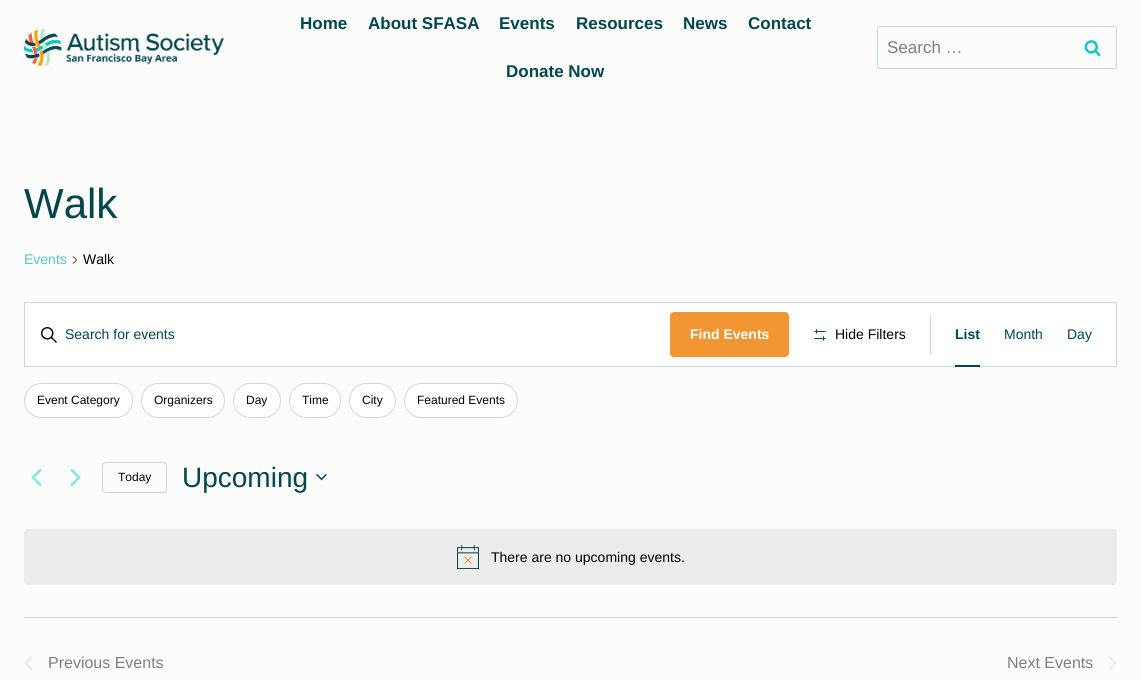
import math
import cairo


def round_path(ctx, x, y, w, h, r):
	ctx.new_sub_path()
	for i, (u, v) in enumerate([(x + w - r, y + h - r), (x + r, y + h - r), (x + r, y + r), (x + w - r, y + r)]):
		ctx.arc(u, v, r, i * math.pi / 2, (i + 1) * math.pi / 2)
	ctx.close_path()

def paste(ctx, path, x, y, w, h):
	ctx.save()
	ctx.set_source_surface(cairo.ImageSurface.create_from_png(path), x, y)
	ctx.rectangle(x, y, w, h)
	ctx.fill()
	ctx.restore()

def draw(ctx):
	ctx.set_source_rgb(0.988, 0.988, 0.984)
	ctx.paint()
	paste(ctx, 'media/1.png', 24, 29, 200, 37)
	ctx.select_font_face('Liberation Sans', cairo.FONT_SLANT_NORMAL, cairo.FONT_WEIGHT_BOLD)
	ctx.set_font_size(17)
	ctx.set_source_rgb(0, 0.275, 0.302)
	for x, y, s in [
		(300, 29, 'Home'),
		(368, 29, 'About SFASA'),
		(499, 29, 'Events'),
		(576, 29, 'Resources'),
		(683, 29, 'News'),
		(748, 29, 'Contact'),
		(506, 77, 'Donate Now'),
	]:
		ctx.move_to(x, y)
		ctx.show_text(s)
	round_path(ctx, 877.5, 26.5, 239, 42, 2.5)
	ctx.set_source_rgb(0.796, 0.835, 0.878)
	ctx.set_line_width(1)
	ctx.stroke()
	ctx.select_font_face('Liberation Sans')
	ctx.set_source_rgb(0.494, 0.494, 0.494)
	ctx.move_to(887, 53)
	ctx.show_text('Search …')
	paste(ctx, 'media/2.png', 1084, 40, 17, 16)
	ctx.set_font_size(42)
	ctx.set_source_rgb(0, 0.275, 0.302)
	ctx.move_to(24, 218)
	ctx.show_text('Walk')
	ctx.set_font_size(14)
	ctx.set_source_rgb(0.341, 0.773, 0.765)
	ctx.move_to(24, 264)
	ctx.show_text('Events')
	paste(ctx, 'media/3.png', 72, 256, 6, 8)
	ctx.set_source_rgb(0, 0, 0)
	ctx.move_to(83, 264)
	ctx.show_text('Walk')
	ctx.set_source_rgb(1, 1, 1)
	ctx.rectangle(24.5, 302.5, 1092, 64)
	ctx.fill_preserve()
	ctx.set_source_rgb(0.796, 0.835, 0.878)
	ctx.stroke()
	paste(ctx, 'media/4.png', 41, 327, 16, 16)
	ctx.set_source_rgb(0, 0.275, 0.302)
	ctx.move_to(65, 339)
	ctx.show_text('Search for events')
	ctx.set_source_rgb(0.945, 0.588, 0.2)
	round_path(ctx, 670, 312, 119, 45, 4)
	ctx.fill()
	ctx.select_font_face('Liberation Sans', cairo.FONT_SLANT_NORMAL, cairo.FONT_WEIGHT_BOLD)
	ctx.set_source_rgb(1, 1, 1)
	ctx.move_to(690, 339)
	ctx.show_text('Find Events')
	ctx.set_source_rgb(0.796, 0.835, 0.878)
	ctx.rectangle(930, 315, 1, 39)
	ctx.fill()
	paste(ctx, 'media/5.png', 814, 329, 12, 12)
	ctx.select_font_face('Liberation Sans')
	ctx.set_source_rgb(0, 0, 0)
	ctx.move_to(835, 339)
	ctx.show_text('Hide Filters')
	ctx.select_font_face('Liberation Sans', cairo.FONT_SLANT_NORMAL, cairo.FONT_WEIGHT_BOLD)
	ctx.set_source_rgb(0, 0.275, 0.302)
	ctx.move_to(955, 339)
	ctx.show_text('List')
	ctx.rectangle(955, 365, 25, 2)
	ctx.fill()
	ctx.select_font_face('Liberation Sans')
	ctx.move_to(1004, 339)
	ctx.show_text('Month')
	ctx.move_to(1067, 339)
	ctx.show_text('Day')
	ctx.set_source_rgb(1, 1, 1)
	round_path(ctx, 24.5, 383.5, 108, 34, 17)
	ctx.fill_preserve()
	ctx.set_source_rgb(0.835, 0.835, 0.835)
	ctx.stroke()
	ctx.set_font_size(12)
	ctx.set_source_rgb(0, 0, 0)
	ctx.move_to(37, 404)
	ctx.show_text('Event Category')
	ctx.set_source_rgb(1, 1, 1)
	round_path(ctx, 141.5, 383.5, 83, 34, 17)
	ctx.fill_preserve()
	ctx.set_source_rgb(0.835, 0.835, 0.835)
	ctx.stroke()
	ctx.set_source_rgb(0, 0, 0)
	ctx.move_to(154, 404)
	ctx.show_text('Organizers')
	ctx.set_source_rgb(1, 1, 1)
	round_path(ctx, 233.5, 383.5, 47, 34, 17)
	ctx.fill_preserve()
	ctx.set_source_rgb(0.835, 0.835, 0.835)
	ctx.stroke()
	ctx.set_source_rgb(0, 0, 0)
	ctx.move_to(246, 404)
	ctx.show_text('Day')
	ctx.set_source_rgb(1, 1, 1)
	round_path(ctx, 289.5, 383.5, 51, 34, 17)
	ctx.fill_preserve()
	ctx.set_source_rgb(0.835, 0.835, 0.835)
	ctx.stroke()
	ctx.set_source_rgb(0, 0, 0)
	ctx.move_to(302, 404)
	ctx.show_text('Time')
	ctx.set_source_rgb(1, 1, 1)
	round_path(ctx, 349.5, 383.5, 46, 34, 17)
	ctx.fill_preserve()
	ctx.set_source_rgb(0.835, 0.835, 0.835)
	ctx.stroke()
	ctx.set_source_rgb(0, 0, 0)
	ctx.move_to(362, 404)
	ctx.show_text('City')
	ctx.set_source_rgb(1, 1, 1)
	round_path(ctx, 404.5, 383.5, 113, 34, 17)
	ctx.fill_preserve()
	ctx.set_source_rgb(0.835, 0.835, 0.835)
	ctx.stroke()
	ctx.set_source_rgb(0, 0, 0)
	ctx.move_to(417, 404)
	ctx.show_text('Featured Events')
	paste(ctx, 'media/6.png', 31, 469, 11, 17)
	paste(ctx, 'media/7.png', 70, 469, 11, 17)
	round_path(ctx, 102.5, 462.5, 64, 30, 3.5)
	ctx.set_source_rgb(0.796, 0.835, 0.878)
	ctx.stroke()
	ctx.set_source_rgb(0, 0, 0)
	ctx.move_to(118, 481)
	ctx.show_text('Today')
	ctx.set_font_size(28)
	ctx.set_source_rgb(0, 0.275, 0.302)
	ctx.move_to(182, 487)
	ctx.show_text('Upcoming')
	paste(ctx, 'media/8.png', 316, 473, 11, 8)
	ctx.set_source_rgb(0.925, 0.925, 0.925)
	round_path(ctx, 24, 529, 1093, 56, 4)
	ctx.fill()
	paste(ctx, 'media/9.png', 457, 545, 22, 24)
	ctx.set_font_size(14)
	ctx.set_source_rgb(0, 0, 0)
	ctx.move_to(491, 562)
	ctx.show_text('There are no upcoming events.')
	ctx.set_source_rgb(0.796, 0.835, 0.878)
	ctx.rectangle(24, 617, 1093, 1)
	ctx.fill()
	paste(ctx, 'media/10.png', 24, 656, 9, 14)
	ctx.set_font_size(16)
	ctx.set_source_rgb(0.494, 0.494, 0.494)
	ctx.move_to(48, 668)
	ctx.show_text('Previous Events')
	ctx.move_to(1007, 668)
	ctx.show_text('Next Events')
	paste(ctx, 'media/11.png', 1108, 656, 9, 14)


surface = cairo.ImageSurface(cairo.FORMAT_RGB24, 1141, 680)
ctx = cairo.Context(surface)
options = cairo.FontOptions()
options.set_hint_metrics(cairo.HINT_METRICS_OFF)
options.set_hint_style(cairo.HINT_STYLE_NONE)
ctx.set_font_options(options)
ctx.set_miter_limit(4)
draw(ctx)
surface.write_to_png('image.png')
